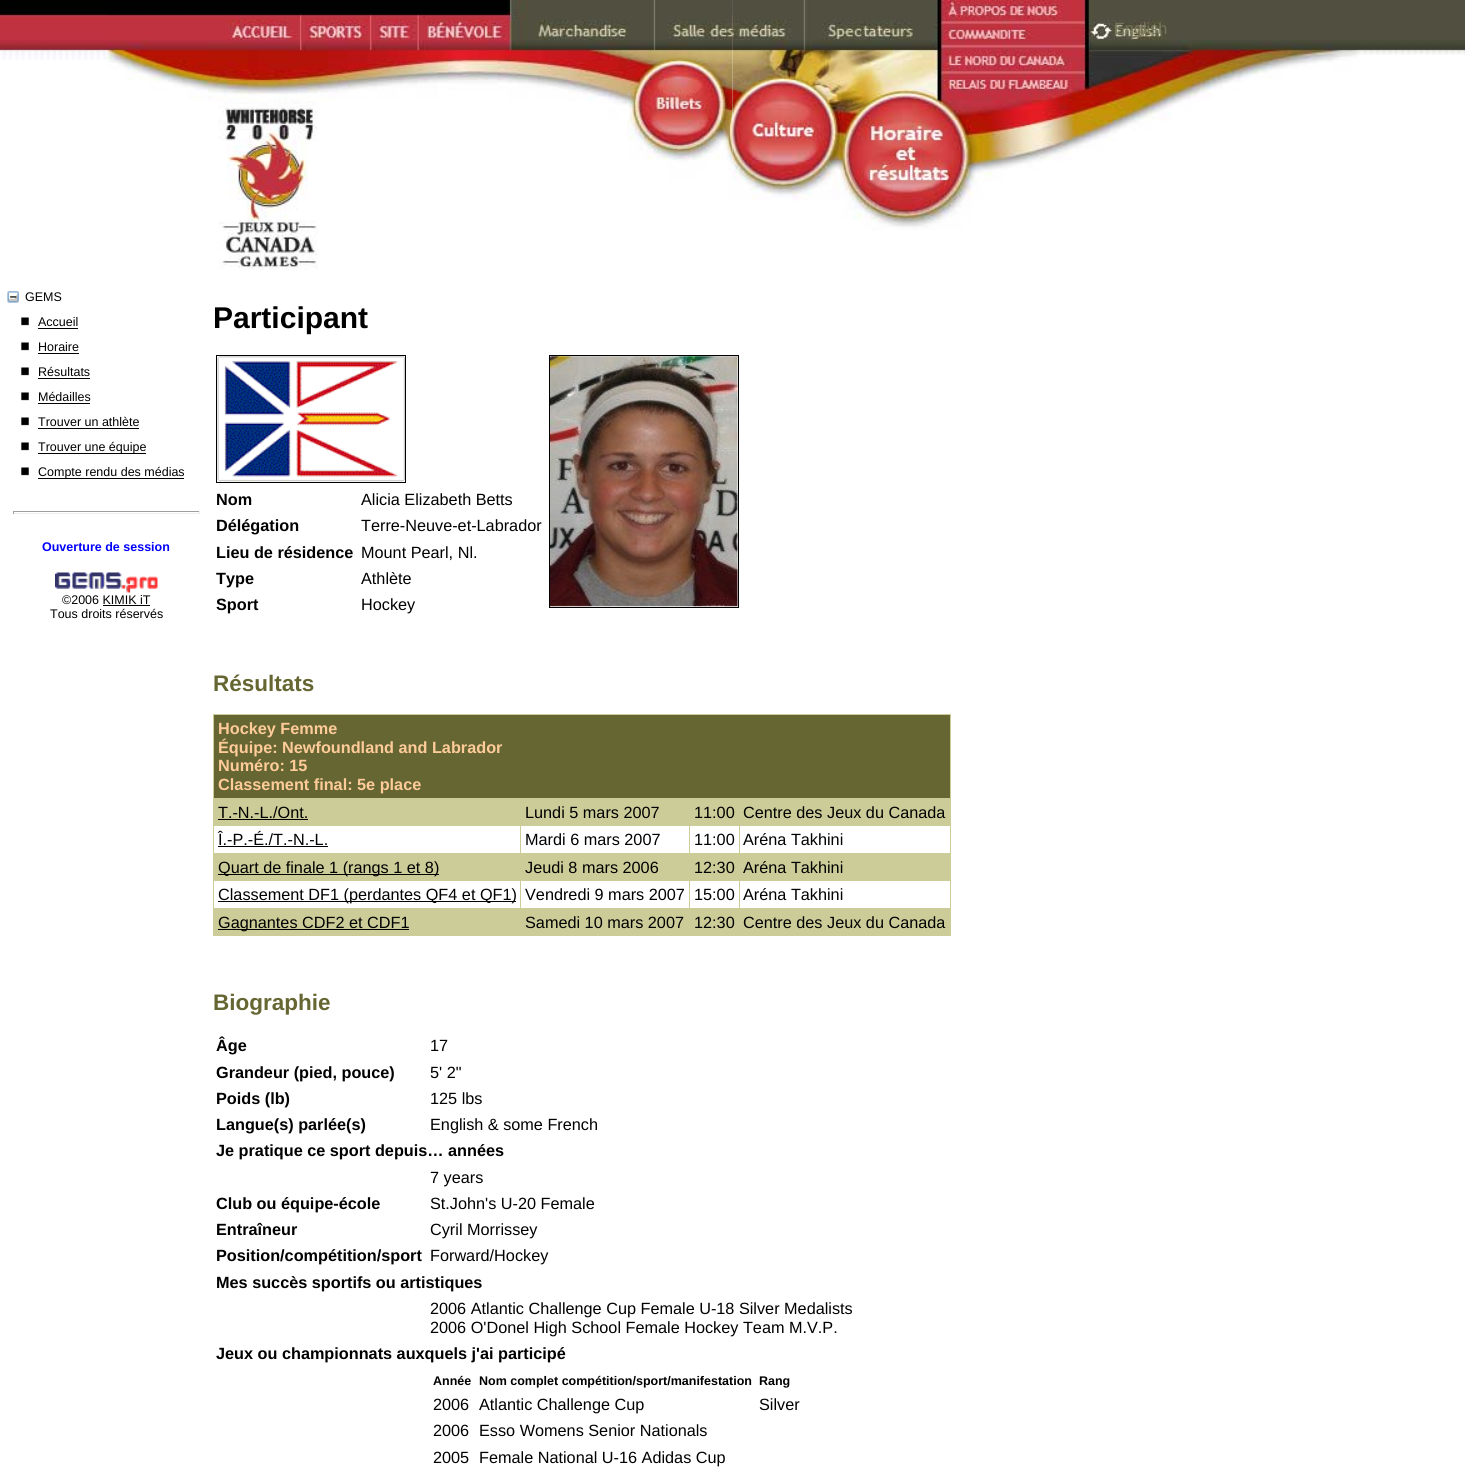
import math
import cairo


def paste(ctx, path, x, y, w, h):
	ctx.save()
	ctx.set_source_surface(cairo.ImageSurface.create_from_png(path), x, y)
	ctx.rectangle(x, y, w, h)
	ctx.fill()
	ctx.restore()

def draw(ctx):
	ctx.set_source_rgb(1, 1, 1)
	ctx.paint()
	paste(ctx, 'media/1.png', 0, 0, 733, 60)
	paste(ctx, 'media/2.png', 107, 0, 626, 270)
	paste(ctx, 'media/3.png', 1357, 0, 108, 55)
	paste(ctx, 'media/4.png', 732, 0, 626, 230)
	ctx.select_font_face('Liberation Sans')
	ctx.set_font_size(16.25)
	ctx.set_source_rgb(0.463, 0.459, 0.361)
	ctx.move_to(1114, 34)
	ctx.show_text('English')
	paste(ctx, 'media/5.png', 7, 291, 12, 12)
	ctx.set_font_size(12.5)
	ctx.set_source_rgb(0, 0, 0)
	ctx.move_to(25, 301)
	ctx.show_text('GEMS')
	paste(ctx, 'media/6.png', 21, 317, 8, 9)
	ctx.move_to(38, 326)
	ctx.show_text('Accueil')
	ctx.rectangle(38, 328, 40, 1)
	ctx.fill()
	paste(ctx, 'media/6.png', 21, 342, 8, 9)
	ctx.move_to(38, 351)
	ctx.show_text('Horaire')
	ctx.rectangle(38, 353, 41, 1)
	ctx.fill()
	paste(ctx, 'media/6.png', 21, 367, 8, 9)
	ctx.move_to(38, 376)
	ctx.show_text('Résultats')
	ctx.rectangle(38, 378, 52, 1)
	ctx.fill()
	paste(ctx, 'media/6.png', 21, 392, 8, 9)
	ctx.move_to(38, 401)
	ctx.show_text('Médailles')
	ctx.rectangle(38, 403, 52, 1)
	ctx.fill()
	paste(ctx, 'media/6.png', 21, 417, 8, 9)
	ctx.move_to(38, 426)
	ctx.show_text('Trouver un athlète')
	ctx.rectangle(38, 428, 101, 1)
	ctx.fill()
	paste(ctx, 'media/6.png', 21, 442, 8, 9)
	ctx.rectangle(38, 453, 108, 1)
	ctx.fill()
	ctx.move_to(38, 451)
	ctx.show_text('Trouver une équipe')
	paste(ctx, 'media/6.png', 21, 467, 8, 9)
	ctx.rectangle(38, 478, 146, 1)
	ctx.fill()
	ctx.move_to(38, 476)
	ctx.show_text('Compte rendu des médias')
	ctx.set_source_rgb(0.624, 0.624, 0.624)
	ctx.rectangle(13, 511, 187, 1)
	ctx.fill()
	ctx.set_source_rgb(0.933, 0.933, 0.933)
	ctx.rectangle(199, 511, 1, 3)
	ctx.rectangle(13, 513, 187, 1)
	ctx.fill()
	ctx.set_source_rgb(0.624, 0.624, 0.624)
	ctx.rectangle(13, 511, 1, 3)
	ctx.fill()
	ctx.select_font_face('Liberation Sans', cairo.FONT_SLANT_NORMAL, cairo.FONT_WEIGHT_BOLD)
	ctx.set_source_rgb(0, 0, 1)
	ctx.move_to(42, 551)
	ctx.show_text('Ouverture de session')
	paste(ctx, 'media/7.png', 55, 572, 103, 21)
	ctx.select_font_face('Liberation Sans')
	ctx.set_source_rgb(0, 0, 0)
	ctx.move_to(62, 604)
	ctx.show_text('©2006 KIMIK iT')
	ctx.rectangle(103, 605, 47, 1)
	ctx.fill()
	ctx.move_to(50, 618)
	ctx.show_text('Tous droits réservés')
	ctx.select_font_face('Liberation Sans', cairo.FONT_SLANT_NORMAL, cairo.FONT_WEIGHT_BOLD)
	ctx.set_font_size(30)
	ctx.move_to(213, 328)
	ctx.show_text('Participant')
	ctx.rectangle(216.5, 355.5, 189, 127)
	ctx.set_line_width(1)
	ctx.stroke()
	paste(ctx, 'media/8.png', 217, 356, 188, 126)
	ctx.rectangle(549.5, 355.5, 189, 252)
	ctx.stroke()
	paste(ctx, 'media/9.png', 550, 356, 188, 251)
	ctx.set_font_size(16.25)
	ctx.move_to(216, 505)
	ctx.show_text('Nom')
	ctx.select_font_face('Liberation Sans')
	ctx.move_to(361, 505)
	ctx.show_text('Alicia Elizabeth Betts')
	ctx.select_font_face('Liberation Sans', cairo.FONT_SLANT_NORMAL, cairo.FONT_WEIGHT_BOLD)
	ctx.move_to(216, 531)
	ctx.show_text('Délégation')
	ctx.select_font_face('Liberation Sans')
	ctx.move_to(361, 531)
	ctx.show_text('Terre-Neuve-et-Labrador')
	ctx.select_font_face('Liberation Sans', cairo.FONT_SLANT_NORMAL, cairo.FONT_WEIGHT_BOLD)
	ctx.move_to(216, 558)
	ctx.show_text('Lieu de résidence')
	ctx.select_font_face('Liberation Sans')
	ctx.move_to(361, 558)
	ctx.show_text('Mount Pearl, Nl.')
	ctx.select_font_face('Liberation Sans', cairo.FONT_SLANT_NORMAL, cairo.FONT_WEIGHT_BOLD)
	ctx.move_to(216, 584)
	ctx.show_text('Type')
	ctx.select_font_face('Liberation Sans')
	ctx.move_to(361, 584)
	ctx.show_text('Athlète')
	ctx.select_font_face('Liberation Sans', cairo.FONT_SLANT_NORMAL, cairo.FONT_WEIGHT_BOLD)
	ctx.move_to(216, 610)
	ctx.show_text('Sport')
	ctx.select_font_face('Liberation Sans')
	ctx.move_to(361, 610)
	ctx.show_text('Hockey')
	ctx.select_font_face('Liberation Sans', cairo.FONT_SLANT_NORMAL, cairo.FONT_WEIGHT_BOLD)
	ctx.set_font_size(22.5)
	ctx.set_source_rgb(0.4, 0.4, 0.2)
	ctx.move_to(213, 691)
	ctx.show_text('Résultats')
	ctx.rectangle(214, 715, 736, 83)
	ctx.fill()
	ctx.set_source_rgb(0.8, 0.8, 0.6)
	ctx.rectangle(213, 714, 738, 1)
	ctx.rectangle(213, 798, 738, 1)
	ctx.rectangle(213, 853, 738, 1)
	ctx.rectangle(213, 908, 738, 1)
	ctx.rectangle(950, 908, 1, 28)
	ctx.rectangle(950, 880, 1, 29)
	ctx.rectangle(950, 853, 1, 28)
	ctx.rectangle(950, 825, 1, 29)
	ctx.rectangle(950, 798, 1, 28)
	ctx.rectangle(950, 714, 1, 85)
	ctx.rectangle(213, 908, 1, 28)
	ctx.rectangle(213, 880, 1, 29)
	ctx.rectangle(213, 853, 1, 28)
	ctx.rectangle(213, 825, 1, 29)
	ctx.rectangle(213, 798, 1, 28)
	ctx.rectangle(213, 714, 1, 85)
	ctx.fill()
	ctx.set_font_size(16.25)
	ctx.set_source_rgb(1, 0.8, 0.6)
	for x, y, s in [
		(218, 734, 'Hockey Femme'),
		(218, 753, 'Équipe: Newfoundland and Labrador'),
		(218, 771, 'Numéro: 15'),
		(218, 790, 'Classement final: 5e place'),
	]:
		ctx.move_to(x, y)
		ctx.show_text(s)
	ctx.set_source_rgb(0.8, 0.8, 0.6)
	ctx.rectangle(214, 799, 736, 27)
	ctx.fill()
	ctx.select_font_face('Liberation Sans')
	ctx.set_source_rgb(0, 0, 0)
	ctx.move_to(218, 818)
	ctx.show_text('T.-N.-L./Ont.')
	ctx.rectangle(218, 819, 90, 1)
	ctx.fill()
	for x, y, s in [
		(525, 818, 'Lundi 5 mars 2007'),
		(694, 818, '11:00'),
		(743, 818, 'Centre des Jeux du Canada'),
		(218, 845, 'Î.-P.-É./T.-N.-L.'),
	]:
		ctx.move_to(x, y)
		ctx.show_text(s)
	ctx.rectangle(218, 846, 110, 1)
	ctx.fill()
	ctx.set_source_rgb(0.8, 0.8, 0.6)
	ctx.rectangle(520, 825, 1, 29)
	ctx.fill()
	ctx.set_source_rgb(0, 0, 0)
	ctx.move_to(525, 845)
	ctx.show_text('Mardi 6 mars 2007')
	ctx.set_source_rgb(0.8, 0.8, 0.6)
	ctx.rectangle(689, 825, 1, 29)
	ctx.fill()
	ctx.set_source_rgb(0, 0, 0)
	ctx.move_to(694, 845)
	ctx.show_text('11:00')
	ctx.set_source_rgb(0.8, 0.8, 0.6)
	ctx.rectangle(739, 825, 1, 29)
	ctx.fill()
	ctx.set_source_rgb(0, 0, 0)
	ctx.move_to(743, 845)
	ctx.show_text('Aréna Takhini')
	ctx.set_source_rgb(0.8, 0.8, 0.6)
	ctx.rectangle(214, 854, 736, 27)
	ctx.fill()
	ctx.set_source_rgb(0, 0, 0)
	ctx.rectangle(218, 874, 221, 1)
	ctx.fill()
	for x, y, s in [
		(218, 873, 'Quart de finale 1 (rangs 1 et 8)'),
		(525, 873, 'Jeudi 8 mars 2006'),
		(694, 873, '12:30'),
		(743, 873, 'Aréna Takhini'),
	]:
		ctx.move_to(x, y)
		ctx.show_text(s)
	ctx.rectangle(218, 901, 298, 1)
	ctx.fill()
	ctx.move_to(218, 900)
	ctx.show_text('Classement DF1 (perdantes QF4 et QF1)')
	ctx.set_source_rgb(0.8, 0.8, 0.6)
	ctx.rectangle(520, 880, 1, 29)
	ctx.fill()
	ctx.set_source_rgb(0, 0, 0)
	ctx.move_to(525, 900)
	ctx.show_text('Vendredi 9 mars 2007')
	ctx.set_source_rgb(0.8, 0.8, 0.6)
	ctx.rectangle(689, 880, 1, 29)
	ctx.fill()
	ctx.set_source_rgb(0, 0, 0)
	ctx.move_to(694, 900)
	ctx.show_text('15:00')
	ctx.set_source_rgb(0.8, 0.8, 0.6)
	ctx.rectangle(739, 880, 1, 29)
	ctx.fill()
	ctx.set_source_rgb(0, 0, 0)
	ctx.move_to(743, 900)
	ctx.show_text('Aréna Takhini')
	ctx.set_source_rgb(0.8, 0.8, 0.6)
	ctx.rectangle(214, 909, 736, 27)
	ctx.fill()
	ctx.set_source_rgb(0, 0, 0)
	ctx.rectangle(218, 929, 191, 1)
	ctx.fill()
	for x, y, s in [
		(218, 928, 'Gagnantes CDF2 et CDF1'),
		(525, 928, 'Samedi 10 mars 2007'),
		(694, 928, '12:30'),
		(743, 928, 'Centre des Jeux du Canada'),
	]:
		ctx.move_to(x, y)
		ctx.show_text(s)
	ctx.select_font_face('Liberation Sans', cairo.FONT_SLANT_NORMAL, cairo.FONT_WEIGHT_BOLD)
	ctx.set_font_size(22.5)
	ctx.set_source_rgb(0.4, 0.4, 0.2)
	ctx.move_to(213, 1010)
	ctx.show_text('Biographie')
	ctx.set_font_size(16.25)
	ctx.set_source_rgb(0, 0, 0)
	ctx.move_to(216, 1051)
	ctx.show_text('Âge')
	ctx.select_font_face('Liberation Sans')
	ctx.move_to(430, 1051)
	ctx.show_text('17')
	ctx.select_font_face('Liberation Sans', cairo.FONT_SLANT_NORMAL, cairo.FONT_WEIGHT_BOLD)
	ctx.move_to(216, 1078)
	ctx.show_text('Grandeur (pied, pouce)')
	ctx.select_font_face('Liberation Sans')
	ctx.move_to(430, 1078)
	ctx.show_text('5\' 2"')
	ctx.select_font_face('Liberation Sans', cairo.FONT_SLANT_NORMAL, cairo.FONT_WEIGHT_BOLD)
	ctx.move_to(216, 1104)
	ctx.show_text('Poids (lb)')
	ctx.select_font_face('Liberation Sans')
	ctx.move_to(430, 1104)
	ctx.show_text('125 lbs')
	ctx.select_font_face('Liberation Sans', cairo.FONT_SLANT_NORMAL, cairo.FONT_WEIGHT_BOLD)
	ctx.move_to(216, 1130)
	ctx.show_text('Langue(s) parlée(s)')
	ctx.select_font_face('Liberation Sans')
	ctx.move_to(430, 1130)
	ctx.show_text('English & some French')
	ctx.select_font_face('Liberation Sans', cairo.FONT_SLANT_NORMAL, cairo.FONT_WEIGHT_BOLD)
	ctx.move_to(216, 1156)
	ctx.show_text('Je pratique ce sport depuis… années')
	ctx.select_font_face('Liberation Sans')
	ctx.move_to(430, 1183)
	ctx.show_text('7 years')
	ctx.select_font_face('Liberation Sans', cairo.FONT_SLANT_NORMAL, cairo.FONT_WEIGHT_BOLD)
	ctx.move_to(216, 1209)
	ctx.show_text('Club ou équipe-école')
	ctx.select_font_face('Liberation Sans')
	ctx.move_to(430, 1209)
	ctx.show_text('St.John\'s U-20 Female')
	ctx.select_font_face('Liberation Sans', cairo.FONT_SLANT_NORMAL, cairo.FONT_WEIGHT_BOLD)
	ctx.move_to(216, 1235)
	ctx.show_text('Entraîneur')
	ctx.select_font_face('Liberation Sans')
	ctx.move_to(430, 1235)
	ctx.show_text('Cyril Morrissey')
	ctx.select_font_face('Liberation Sans', cairo.FONT_SLANT_NORMAL, cairo.FONT_WEIGHT_BOLD)
	ctx.move_to(216, 1261)
	ctx.show_text('Position/compétition/sport')
	ctx.select_font_face('Liberation Sans')
	ctx.move_to(430, 1261)
	ctx.show_text('Forward/Hockey')
	ctx.select_font_face('Liberation Sans', cairo.FONT_SLANT_NORMAL, cairo.FONT_WEIGHT_BOLD)
	ctx.move_to(216, 1288)
	ctx.show_text('Mes succès sportifs ou artistiques')
	ctx.select_font_face('Liberation Sans')
	ctx.move_to(430, 1314)
	ctx.show_text('2006 Atlantic Challenge Cup Female U-18 Silver Medalists')
	ctx.move_to(430, 1333)
	ctx.show_text('2006 O\'Donel High School Female Hockey Team M.V.P.')
	ctx.select_font_face('Liberation Sans', cairo.FONT_SLANT_NORMAL, cairo.FONT_WEIGHT_BOLD)
	ctx.move_to(216, 1359)
	ctx.show_text('Jeux ou championnats auxquels j\'ai participé')
	ctx.set_font_size(12.5)
	for x, y, s in [
		(433, 1385, 'Année'),
		(479, 1385, 'Nom complet compétition/sport/manifestation'),
		(759, 1385, 'Rang'),
	]:
		ctx.move_to(x, y)
		ctx.show_text(s)
	ctx.select_font_face('Liberation Sans')
	ctx.set_font_size(16.25)
	for x, y, s in [
		(433, 1410, '2006'),
		(479, 1410, 'Atlantic Challenge Cup'),
		(759, 1410, 'Silver'),
		(433, 1436, '2006'),
		(479, 1436, 'Esso Womens Senior Nationals'),
		(433, 1463, '2005'),
		(479, 1463, 'Female National U-16 Adidas Cup'),
	]:
		ctx.move_to(x, y)
		ctx.show_text(s)


surface = cairo.ImageSurface(cairo.FORMAT_RGB24, 1465, 1477)
ctx = cairo.Context(surface)
options = cairo.FontOptions()
options.set_hint_metrics(cairo.HINT_METRICS_OFF)
options.set_hint_style(cairo.HINT_STYLE_NONE)
ctx.set_font_options(options)
ctx.set_miter_limit(4)
draw(ctx)
surface.write_to_png('image.png')
